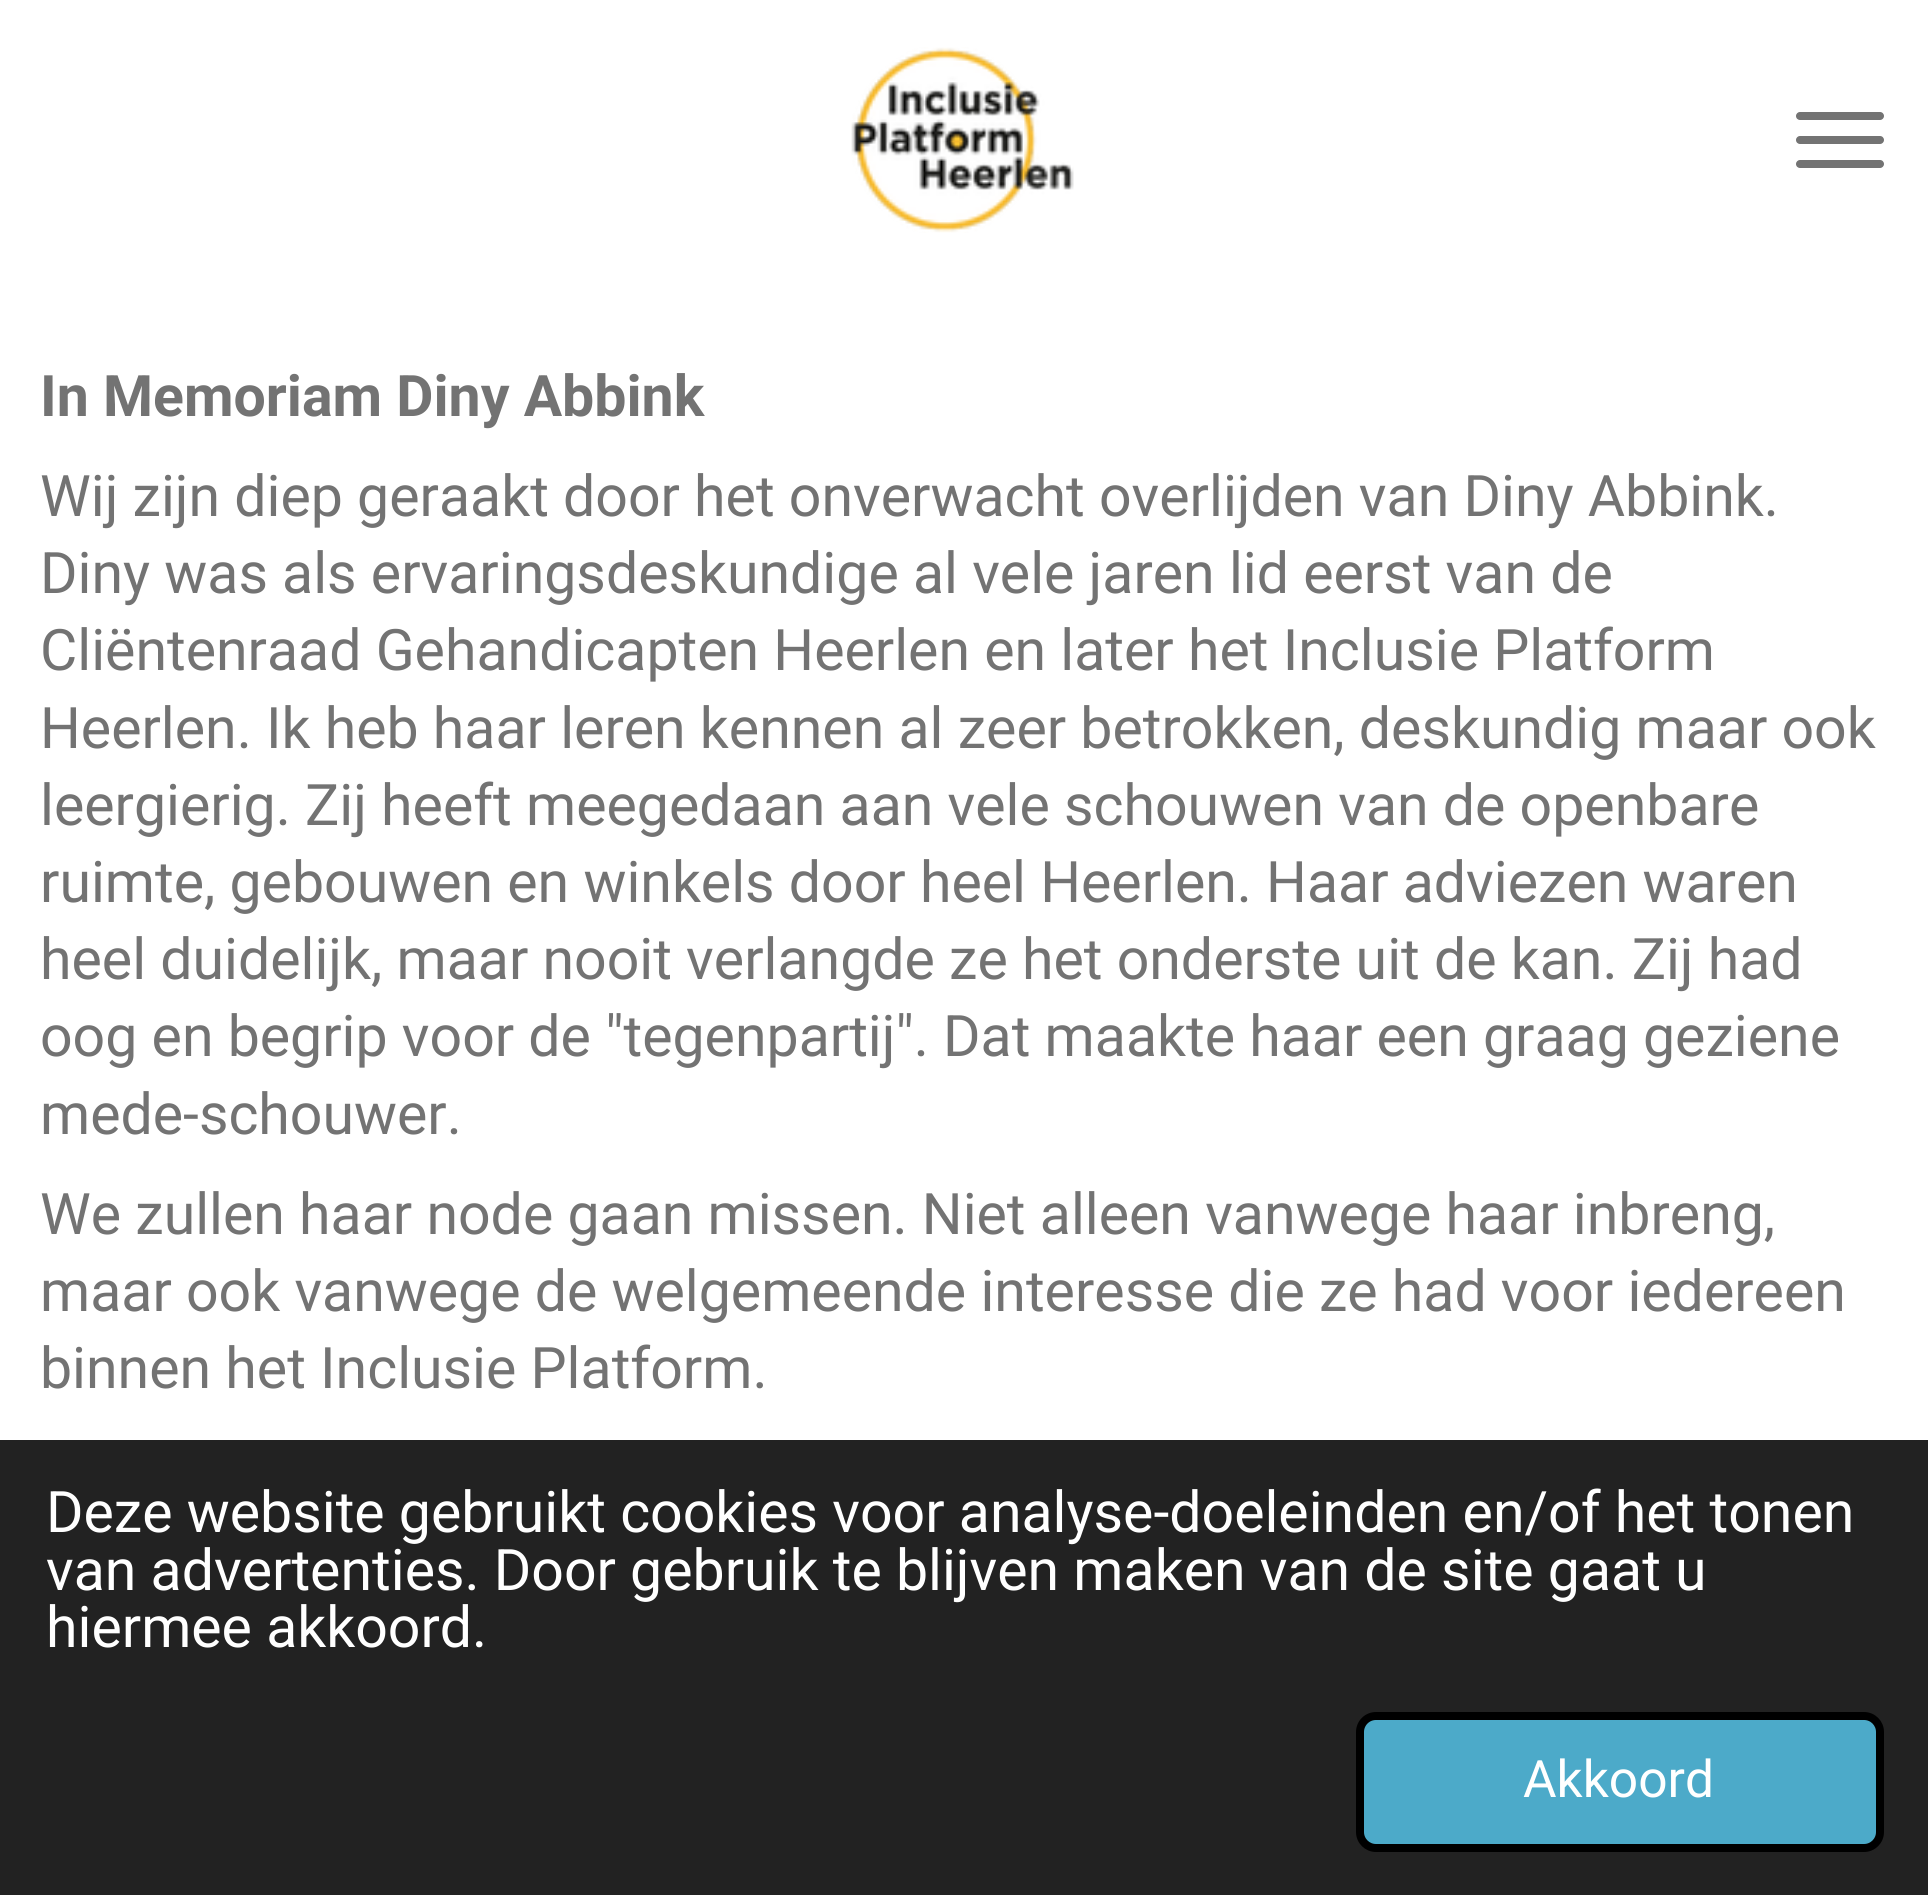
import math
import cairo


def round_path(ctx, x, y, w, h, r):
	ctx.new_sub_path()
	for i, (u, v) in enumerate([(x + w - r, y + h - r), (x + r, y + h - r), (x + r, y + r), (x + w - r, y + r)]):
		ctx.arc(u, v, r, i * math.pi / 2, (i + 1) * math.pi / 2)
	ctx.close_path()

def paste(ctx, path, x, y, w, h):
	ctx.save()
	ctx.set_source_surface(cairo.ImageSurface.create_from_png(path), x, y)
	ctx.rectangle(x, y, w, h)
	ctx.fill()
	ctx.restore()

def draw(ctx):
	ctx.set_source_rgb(1, 1, 1)
	ctx.paint()
	paste(ctx, 'media/1.png', 851, 47, 223, 186)
	ctx.set_source_rgb(0.451, 0.451, 0.451)
	round_path(ctx, 1796, 136, 88, 8, 4)
	ctx.fill()
	round_path(ctx, 1796, 112, 88, 8, 4)
	ctx.fill()
	round_path(ctx, 1796, 160, 88, 8, 4)
	ctx.fill()
	ctx.select_font_face('Roboto', cairo.FONT_SLANT_NORMAL, cairo.FONT_WEIGHT_BOLD)
	ctx.set_font_size(57.2)
	ctx.move_to(40, 416)
	ctx.show_text('In Memoriam Diny Abbink')
	ctx.select_font_face('Roboto')
	for x, y, s in [
		(40, 516, 'Wij zijn diep geraakt door het onverwacht overlijden van Diny Abbink.'),
		(40, 593, 'Diny was als ervaringsdeskundige al vele jaren lid eerst van de'),
		(40, 670, 'Cliëntenraad Gehandicapten Heerlen en later het Inclusie Platform'),
		(40, 748, 'Heerlen. Ik heb haar leren kennen al zeer betrokken, deskundig maar ook'),
		(40, 825, 'leergierig. Zij heeft meegedaan aan vele schouwen van de openbare'),
		(40, 902, 'ruimte, gebouwen en winkels door heel Heerlen. Haar adviezen waren'),
		(40, 979, 'heel duidelijk, maar nooit verlangde ze het onderste uit de kan. Zij had'),
		(40, 1056, 'oog en begrip voor de "tegenpartij". Dat maakte haar een graag geziene'),
		(40, 1134, 'mede-schouwer.'),
		(40, 1234, 'We zullen haar node gaan missen. Niet alleen vanwege haar inbreng,'),
		(40, 1311, 'maar ook vanwege de welgemeende interesse die ze had voor iedereen'),
		(40, 1388, 'binnen het Inclusie Platform.'),
	]:
		ctx.move_to(x, y)
		ctx.show_text(s)
	ctx.set_source_rgb(0.133, 0.133, 0.133)
	ctx.rectangle(0, 1440, 1928, 455)
	ctx.fill()
	ctx.set_source_rgb(1, 1, 1)
	for x, y, s in [
		(46, 1532, 'Deze website gebruikt cookies voor analyse-doeleinden en/of het tonen'),
		(46, 1590, 'van advertenties. Door gebruik te blijven maken van de site gaat u'),
		(46, 1647, 'hiermee akkoord.'),
	]:
		ctx.move_to(x, y)
		ctx.show_text(s)
	ctx.set_source_rgb(0.298, 0.667, 0.788)
	round_path(ctx, 1360, 1716, 520, 132, 16)
	ctx.fill_preserve()
	ctx.set_source_rgb(0, 0, 0)
	ctx.set_line_width(8)
	ctx.stroke()
	ctx.set_font_size(51.5)
	ctx.set_source_rgb(1, 1, 1)
	ctx.move_to(1523, 1797)
	ctx.show_text('Akkoord')


surface = cairo.ImageSurface(cairo.FORMAT_RGB24, 1928, 1895)
ctx = cairo.Context(surface)
options = cairo.FontOptions()
options.set_hint_metrics(cairo.HINT_METRICS_OFF)
options.set_hint_style(cairo.HINT_STYLE_NONE)
ctx.set_font_options(options)
ctx.set_miter_limit(4)
draw(ctx)
surface.write_to_png('image.png')
